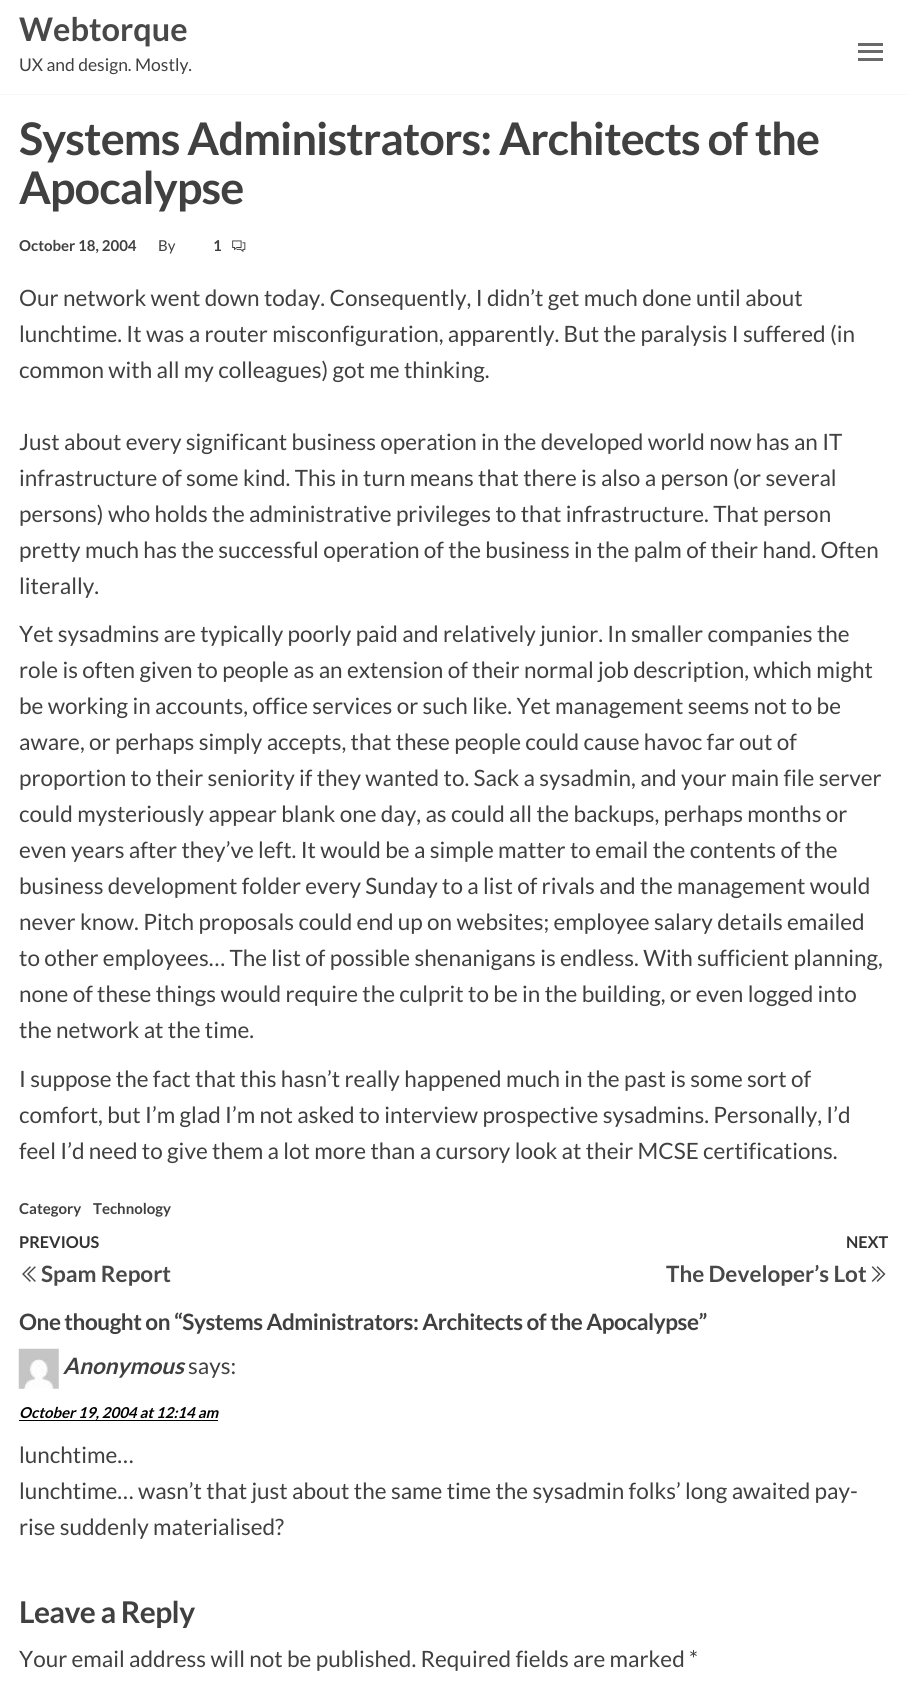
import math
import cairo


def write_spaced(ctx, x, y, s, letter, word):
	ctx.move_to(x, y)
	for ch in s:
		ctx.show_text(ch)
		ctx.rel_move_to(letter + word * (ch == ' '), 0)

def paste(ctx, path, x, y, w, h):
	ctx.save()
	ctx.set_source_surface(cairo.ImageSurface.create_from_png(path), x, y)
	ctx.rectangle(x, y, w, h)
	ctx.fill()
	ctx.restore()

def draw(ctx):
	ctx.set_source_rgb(1, 1, 1)
	ctx.paint()
	ctx.set_source_rgb(0.965, 0.965, 0.965)
	ctx.rectangle(0, 94, 907, 1)
	ctx.fill()
	ctx.select_font_face('Lato', cairo.FONT_SLANT_NORMAL, cairo.FONT_WEIGHT_BOLD)
	ctx.set_font_size(32.5)
	ctx.set_source_rgb(0.282, 0.282, 0.282)
	ctx.move_to(19, 41)
	ctx.show_text('Webtorque')
	ctx.select_font_face('Lato')
	ctx.set_font_size(17.5)
	ctx.set_source_rgb(0.251, 0.251, 0.251)
	ctx.move_to(19, 71)
	ctx.show_text('UX and design. Mostly.')
	ctx.set_source_rgb(0.412, 0.412, 0.412)
	ctx.rectangle(858, 50, 25, 3)
	ctx.rectangle(858, 43, 25, 3)
	ctx.rectangle(858, 58, 25, 3)
	ctx.fill()
	ctx.select_font_face('Lato', cairo.FONT_SLANT_NORMAL, cairo.FONT_WEIGHT_BOLD)
	ctx.set_font_size(45)
	ctx.set_source_rgb(0.251, 0.251, 0.251)
	write_spaced(ctx, 19, 155, 'Systems Administrators: Architects of the', -0.9, 0)
	write_spaced(ctx, 19, 204, 'Apocalypse', -0.9, 0)
	ctx.set_font_size(15)
	ctx.move_to(19, 251)
	ctx.show_text('October 18, 2004')
	ctx.select_font_face('Lato')
	ctx.move_to(158, 251)
	ctx.show_text('By')
	ctx.select_font_face('Lato', cairo.FONT_SLANT_NORMAL, cairo.FONT_WEIGHT_BOLD)
	ctx.move_to(213, 251)
	ctx.show_text('1')
	paste(ctx, 'media/1.png', 232, 240, 14, 13)
	ctx.select_font_face('Lato')
	ctx.set_font_size(22.5)
	for x, y, s in [
		(19, 306, 'Our network went down today. Consequently, I didn’t get much done until about'),
		(19, 342, 'lunchtime. It was a router misconfiguration, apparently. But the paralysis I suffered (in'),
		(19, 378, 'common with all my colleagues) got me thinking.'),
		(19, 450, 'Just about every significant business operation in the developed world now has an IT'),
		(19, 486, 'infrastructure of some kind. This in turn means that there is also a person (or several'),
		(19, 522, 'persons) who holds the administrative privileges to that infrastructure. That person'),
		(19, 558, 'pretty much has the successful operation of the business in the palm of their hand. Often'),
		(19, 594, 'literally.'),
		(19, 642, 'Yet sysadmins are typically poorly paid and relatively junior. In smaller companies the'),
		(19, 678, 'role is often given to people as an extension of their normal job description, which might'),
		(19, 714, 'be working in accounts, office services or such like. Yet management seems not to be'),
		(19, 750, 'aware, or perhaps simply accepts, that these people could cause havoc far out of'),
		(19, 786, 'proportion to their seniority if they wanted to. Sack a sysadmin, and your main file server'),
		(19, 822, 'could mysteriously appear blank one day, as could all the backups, perhaps months or'),
		(19, 858, 'even years after they’ve left. It would be a simple matter to email the contents of the'),
		(19, 894, 'business development folder every Sunday to a list of rivals and the management would'),
		(19, 930, 'never know. Pitch proposals could end up on websites; employee salary details emailed'),
		(19, 966, 'to other employees… The list of possible shenanigans is endless. With sufficient planning,'),
		(19, 1002, 'none of these things would require the culprit to be in the building, or even logged into'),
		(19, 1038, 'the network at the time.'),
		(19, 1087, 'I suppose the fact that this hasn’t really happened much in the past is some sort of'),
		(19, 1123, 'comfort, but I’m glad I’m not asked to interview prospective sysadmins. Personally, I’d'),
		(19, 1159, 'feel I’d need to give them a lot more than a cursory look at their MCSE certifications.'),
	]:
		ctx.move_to(x, y)
		ctx.show_text(s)
	ctx.select_font_face('Lato', cairo.FONT_SLANT_NORMAL, cairo.FONT_WEIGHT_BOLD)
	ctx.set_font_size(15)
	ctx.move_to(19, 1214)
	ctx.show_text('Category')
	ctx.move_to(93, 1214)
	ctx.show_text('Technology')
	ctx.set_font_size(16.25)
	ctx.set_source_rgb(0.2, 0.2, 0.2)
	ctx.move_to(19, 1248)
	ctx.show_text('PREVIOUS')
	paste(ctx, 'media/2.png', 22, 1266, 14, 16)
	ctx.set_font_size(22.5)
	ctx.set_source_rgb(0.282, 0.282, 0.282)
	ctx.move_to(41, 1282)
	ctx.show_text('Spam Report')
	ctx.set_font_size(16.25)
	ctx.set_source_rgb(0.2, 0.2, 0.2)
	ctx.move_to(846, 1248)
	ctx.show_text('NEXT')
	ctx.set_font_size(22.5)
	ctx.set_source_rgb(0.282, 0.282, 0.282)
	ctx.move_to(666, 1282)
	ctx.show_text('The Developer’s Lot')
	paste(ctx, 'media/3.png', 871, 1266, 15, 16)
	ctx.set_source_rgb(0.251, 0.251, 0.251)
	write_spaced(ctx, 19, 1330, 'One thought on “Systems Administrators: Architects of the Apocalypse”', -0.45, 0)
	paste(ctx, 'media/4.png', 18, 1348, 41, 41)
	ctx.select_font_face('Lato', cairo.FONT_SLANT_ITALIC, cairo.FONT_WEIGHT_BOLD)
	ctx.move_to(63, 1374)
	ctx.show_text('Anonymous')
	ctx.select_font_face('Lato')
	ctx.move_to(188, 1374)
	ctx.show_text('says:')
	ctx.set_source_rgb(0, 0, 0)
	ctx.rectangle(19, 1420, 199, 1)
	ctx.fill()
	ctx.select_font_face('Lato', cairo.FONT_SLANT_ITALIC, cairo.FONT_WEIGHT_BOLD)
	ctx.set_font_size(15)
	ctx.move_to(19, 1418)
	ctx.show_text('October 19, 2004 at 12:14 am')
	ctx.select_font_face('Lato')
	ctx.set_font_size(22.5)
	ctx.set_source_rgb(0.251, 0.251, 0.251)
	for x, y, s in [
		(19, 1463, 'lunchtime…'),
		(19, 1499, 'lunchtime… wasn’t that just about the same time the sysadmin folks’ long awaited pay-'),
		(19, 1535, 'rise suddenly materialised?'),
	]:
		ctx.move_to(x, y)
		ctx.show_text(s)
	ctx.select_font_face('Lato', cairo.FONT_SLANT_NORMAL, cairo.FONT_WEIGHT_BOLD)
	ctx.set_font_size(30)
	write_spaced(ctx, 19, 1623, 'Leave a Reply', -0.6, 0)
	ctx.select_font_face('Lato')
	ctx.set_font_size(22.5)
	ctx.move_to(19, 1667)
	ctx.show_text('Your email address will not be published. Required fields are marked *')


surface = cairo.ImageSurface(cairo.FORMAT_RGB24, 907, 1702)
ctx = cairo.Context(surface)
options = cairo.FontOptions()
options.set_hint_metrics(cairo.HINT_METRICS_OFF)
options.set_hint_style(cairo.HINT_STYLE_NONE)
ctx.set_font_options(options)
ctx.set_miter_limit(4)
draw(ctx)
surface.write_to_png('image.png')
